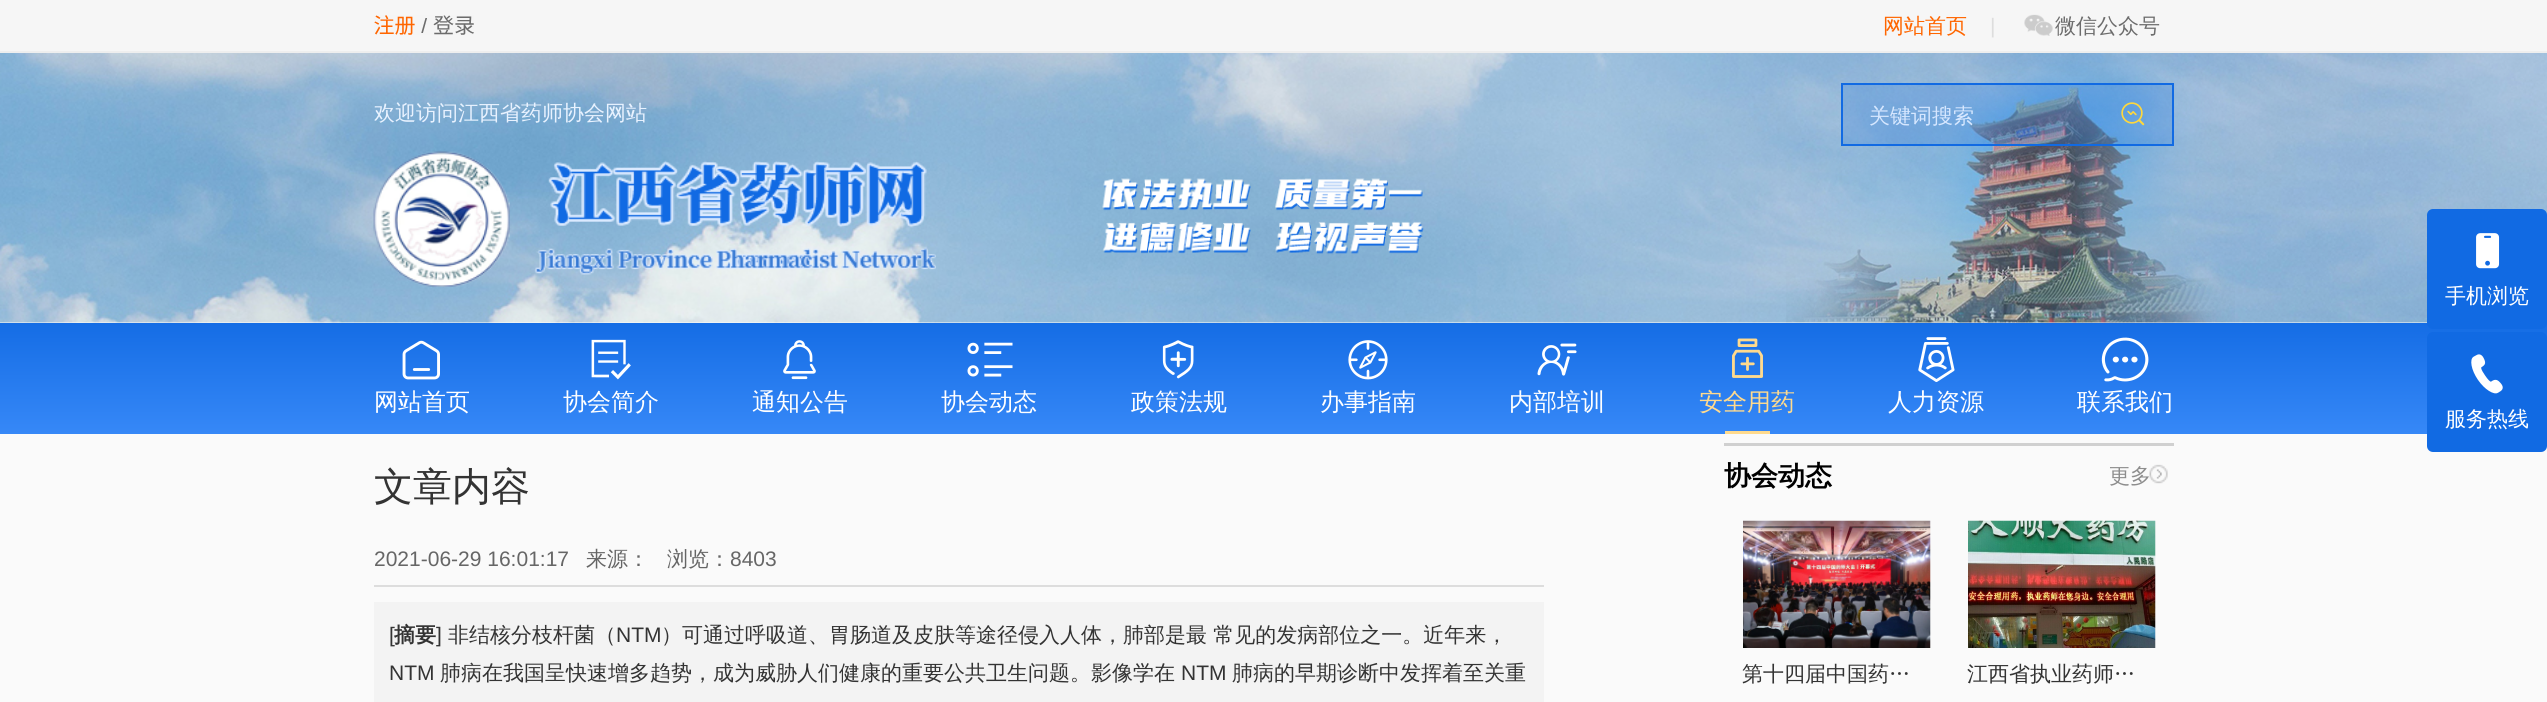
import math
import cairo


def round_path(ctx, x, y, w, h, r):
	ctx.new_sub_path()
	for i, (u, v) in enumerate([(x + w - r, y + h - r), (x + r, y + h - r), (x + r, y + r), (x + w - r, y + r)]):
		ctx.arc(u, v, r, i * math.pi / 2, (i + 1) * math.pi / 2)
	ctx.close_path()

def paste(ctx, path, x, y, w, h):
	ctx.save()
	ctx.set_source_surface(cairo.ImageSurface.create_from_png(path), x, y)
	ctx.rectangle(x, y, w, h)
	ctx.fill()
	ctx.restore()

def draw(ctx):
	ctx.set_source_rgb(0.98, 0.98, 0.98)
	ctx.paint()
	ctx.set_source_rgb(0.961, 0.961, 0.961)
	ctx.rectangle(0, 0, 2547, 51)
	ctx.fill()
	ctx.set_source_rgb(0.933, 0.933, 0.933)
	ctx.rectangle(0, 51, 2547, 2)
	ctx.fill()
	paste(ctx, 'media/1.png', 374, 15, 100, 20)
	ctx.select_font_face('WenQuanYi Zen Hei Medium')
	ctx.set_font_size(21)
	ctx.set_source_rgb(1, 0.4, 0)
	ctx.move_to(1883, 33)
	ctx.show_text('网站首页')
	ctx.select_font_face('Liberation Sans')
	ctx.set_source_rgb(0.867, 0.867, 0.867)
	ctx.move_to(1990, 33)
	ctx.show_text('|')
	paste(ctx, 'media/2.png', 2024, 14, 29, 22)
	ctx.select_font_face('WenQuanYi Zen Hei Medium')
	ctx.set_source_rgb(0.424, 0.424, 0.424)
	ctx.move_to(2055, 33)
	ctx.show_text('微信公众号')
	paste(ctx, 'media/3.png', 0, 53, 2547, 270)
	ctx.set_source_rgb(0.91, 0.949, 1)
	ctx.move_to(374, 120)
	ctx.show_text('欢迎访问江西省药师协会网站')
	paste(ctx, 'media/5.png', 1786, 53, 449, 270)
	ctx.set_source_rgba(0.067, 0.416, 0.89, 0.2)
	ctx.rectangle(1842, 84, 331, 61)
	ctx.fill_preserve()
	ctx.set_source_rgb(0.067, 0.416, 0.89)
	ctx.stroke()
	ctx.set_source_rgb(0.839, 0.906, 1)
	ctx.move_to(1869, 123)
	ctx.show_text('关键词搜索')
	paste(ctx, 'media/4.png', 2121, 102, 24, 24)
	paste(ctx, 'media/6.png', 373, 151, 563, 136)
	paste(ctx, 'media/7.png', 1102, 178, 322, 76)
	gradient = cairo.LinearGradient(1274, 434, 1274, 323)
	gradient.add_color_stop_rgba(0, 0.212, 0.533, 0.969, 1)
	gradient.add_color_stop_rgba(1, 0.082, 0.427, 0.898, 1)
	ctx.set_source(gradient)
	ctx.rectangle(0, 323, 2547, 111)
	ctx.fill()
	paste(ctx, 'media/8.png', 402, 340, 38, 40)
	ctx.set_font_size(24)
	ctx.set_source_rgb(1, 1, 1)
	ctx.move_to(374, 410)
	ctx.show_text('网站首页')
	paste(ctx, 'media/9.png', 591, 339, 40, 41)
	ctx.move_to(563, 410)
	ctx.show_text('协会简介')
	paste(ctx, 'media/10.png', 783, 340, 33, 40)
	ctx.move_to(752, 410)
	ctx.show_text('通知公告')
	paste(ctx, 'media/11.png', 967, 342, 46, 35)
	ctx.move_to(941, 410)
	ctx.show_text('协会动态')
	paste(ctx, 'media/12.png', 1162, 340, 32, 39)
	ctx.move_to(1131, 410)
	ctx.show_text('政策法规')
	paste(ctx, 'media/13.png', 1348, 340, 40, 40)
	ctx.move_to(1320, 410)
	ctx.show_text('办事指南')
	paste(ctx, 'media/14.png', 1537, 343, 40, 33)
	ctx.move_to(1509, 410)
	ctx.show_text('内部培训')
	paste(ctx, 'media/15.png', 1732, 338, 31, 40)
	ctx.set_source_rgb(1, 0.855, 0.553)
	ctx.move_to(1699, 410)
	ctx.show_text('安全用药')
	ctx.rectangle(1725, 431, 45, 3)
	ctx.fill()
	paste(ctx, 'media/16.png', 1918, 337, 37, 45)
	ctx.set_source_rgb(1, 1, 1)
	ctx.move_to(1888, 410)
	ctx.show_text('人力资源')
	paste(ctx, 'media/17.png', 2101, 337, 48, 45)
	ctx.move_to(2077, 410)
	ctx.show_text('联系我们')
	ctx.set_source_rgb(0.067, 0.416, 0.89)
	round_path(ctx, 2427, 209, 120, 120, 6)
	ctx.fill()
	paste(ctx, 'media/18.png', 2476, 233, 24, 36)
	ctx.set_font_size(21)
	ctx.set_source_rgb(1, 1, 1)
	ctx.move_to(2445, 303)
	ctx.show_text('手机浏览')
	ctx.set_source_rgb(0.067, 0.416, 0.89)
	round_path(ctx, 2427, 332, 120, 120, 6)
	ctx.fill()
	paste(ctx, 'media/19.png', 2471, 354, 32, 40)
	ctx.set_source_rgb(1, 1, 1)
	ctx.move_to(2445, 426)
	ctx.show_text('服务热线')
	ctx.set_font_size(39)
	ctx.set_source_rgb(0.2, 0.2, 0.2)
	ctx.move_to(374, 500)
	ctx.show_text('文章内容')
	ctx.set_source_rgb(0.867, 0.867, 0.867)
	ctx.rectangle(374, 585, 1170, 2)
	ctx.fill()
	ctx.select_font_face('Liberation Sans')
	ctx.set_font_size(21)
	ctx.set_source_rgb(0.4, 0.4, 0.4)
	ctx.move_to(374, 566)
	ctx.show_text('2021-06-29 16:01:17')
	ctx.select_font_face('WenQuanYi Zen Hei Medium')
	ctx.move_to(586, 566)
	ctx.show_text('来源：')
	ctx.move_to(667, 566)
	ctx.show_text('浏览：')
	ctx.select_font_face('Liberation Sans')
	ctx.move_to(730, 566)
	ctx.show_text('8403')
	ctx.set_source_rgb(0.953, 0.953, 0.953)
	ctx.rectangle(374, 602, 1170, 100)
	ctx.fill()
	ctx.set_source_rgb(0.2, 0.2, 0.2)
	ctx.move_to(389, 642)
	ctx.show_text('[')
	ctx.select_font_face('WenQuanYi Zen Hei', cairo.FONT_SLANT_NORMAL, cairo.FONT_WEIGHT_BOLD)
	ctx.move_to(394, 642)
	ctx.show_text('摘要')
	ctx.select_font_face('Liberation Sans')
	ctx.move_to(436, 642)
	ctx.show_text(']')
	ctx.select_font_face('WenQuanYi Zen Hei Medium')
	ctx.move_to(448, 642)
	ctx.show_text('非结核分枝杆菌（')
	ctx.select_font_face('Liberation Sans')
	ctx.move_to(616, 642)
	ctx.show_text('NTM')
	ctx.select_font_face('WenQuanYi Zen Hei Medium')
	ctx.move_to(661, 642)
	ctx.show_text('）可通过呼吸道、胃肠道及皮肤等途径侵入人体，肺部是最 常见的发病部位之一。近年来，')
	ctx.select_font_face('Liberation Sans')
	ctx.move_to(389, 680)
	ctx.show_text('NTM')
	ctx.select_font_face('WenQuanYi Zen Hei Medium')
	ctx.move_to(440, 680)
	ctx.show_text('肺病在我国呈快速增多趋势，成为威胁人们健康的重要公共卫生问题。影像学在')
	ctx.select_font_face('Liberation Sans')
	ctx.move_to(1181, 680)
	ctx.show_text('NTM')
	ctx.select_font_face('WenQuanYi Zen Hei Medium')
	ctx.move_to(1232, 680)
	ctx.show_text('肺病的早期诊断中发挥着至关重')
	ctx.set_source_rgb(0.816, 0.816, 0.816)
	ctx.rectangle(1724, 443, 450, 3)
	ctx.fill()
	ctx.select_font_face('WenQuanYi Zen Hei', cairo.FONT_SLANT_NORMAL, cairo.FONT_WEIGHT_BOLD)
	ctx.set_font_size(27)
	ctx.set_source_rgb(0, 0, 0)
	ctx.move_to(1724, 485)
	ctx.show_text('协会动态')
	paste(ctx, 'media/20.png', 2149, 464, 19, 20)
	ctx.select_font_face('WenQuanYi Zen Hei Medium')
	ctx.set_font_size(21)
	ctx.set_source_rgb(0.553, 0.553, 0.553)
	ctx.move_to(2109, 483)
	ctx.show_text('更多')
	ctx.set_source_rgb(0.961, 0.961, 0.961)
	ctx.rectangle(1930, 521, 1, 127)
	ctx.fill()
	paste(ctx, 'media/21.png', 1743, 520, 188, 128)
	ctx.set_source_rgb(0.2, 0.2, 0.2)
	ctx.move_to(1742, 681)
	ctx.show_text('第十四届中国药…')
	ctx.set_source_rgb(0.961, 0.961, 0.961)
	ctx.rectangle(2155, 521, 1, 127)
	ctx.fill()
	paste(ctx, 'media/22.png', 1968, 520, 188, 128)
	ctx.set_source_rgb(0.2, 0.2, 0.2)
	ctx.move_to(1967, 681)
	ctx.show_text('江西省执业药师…')


surface = cairo.ImageSurface(cairo.FORMAT_RGB24, 2547, 702)
ctx = cairo.Context(surface)
options = cairo.FontOptions()
options.set_hint_metrics(cairo.HINT_METRICS_OFF)
options.set_hint_style(cairo.HINT_STYLE_NONE)
ctx.set_font_options(options)
ctx.set_miter_limit(4)
draw(ctx)
surface.write_to_png('image.png')
